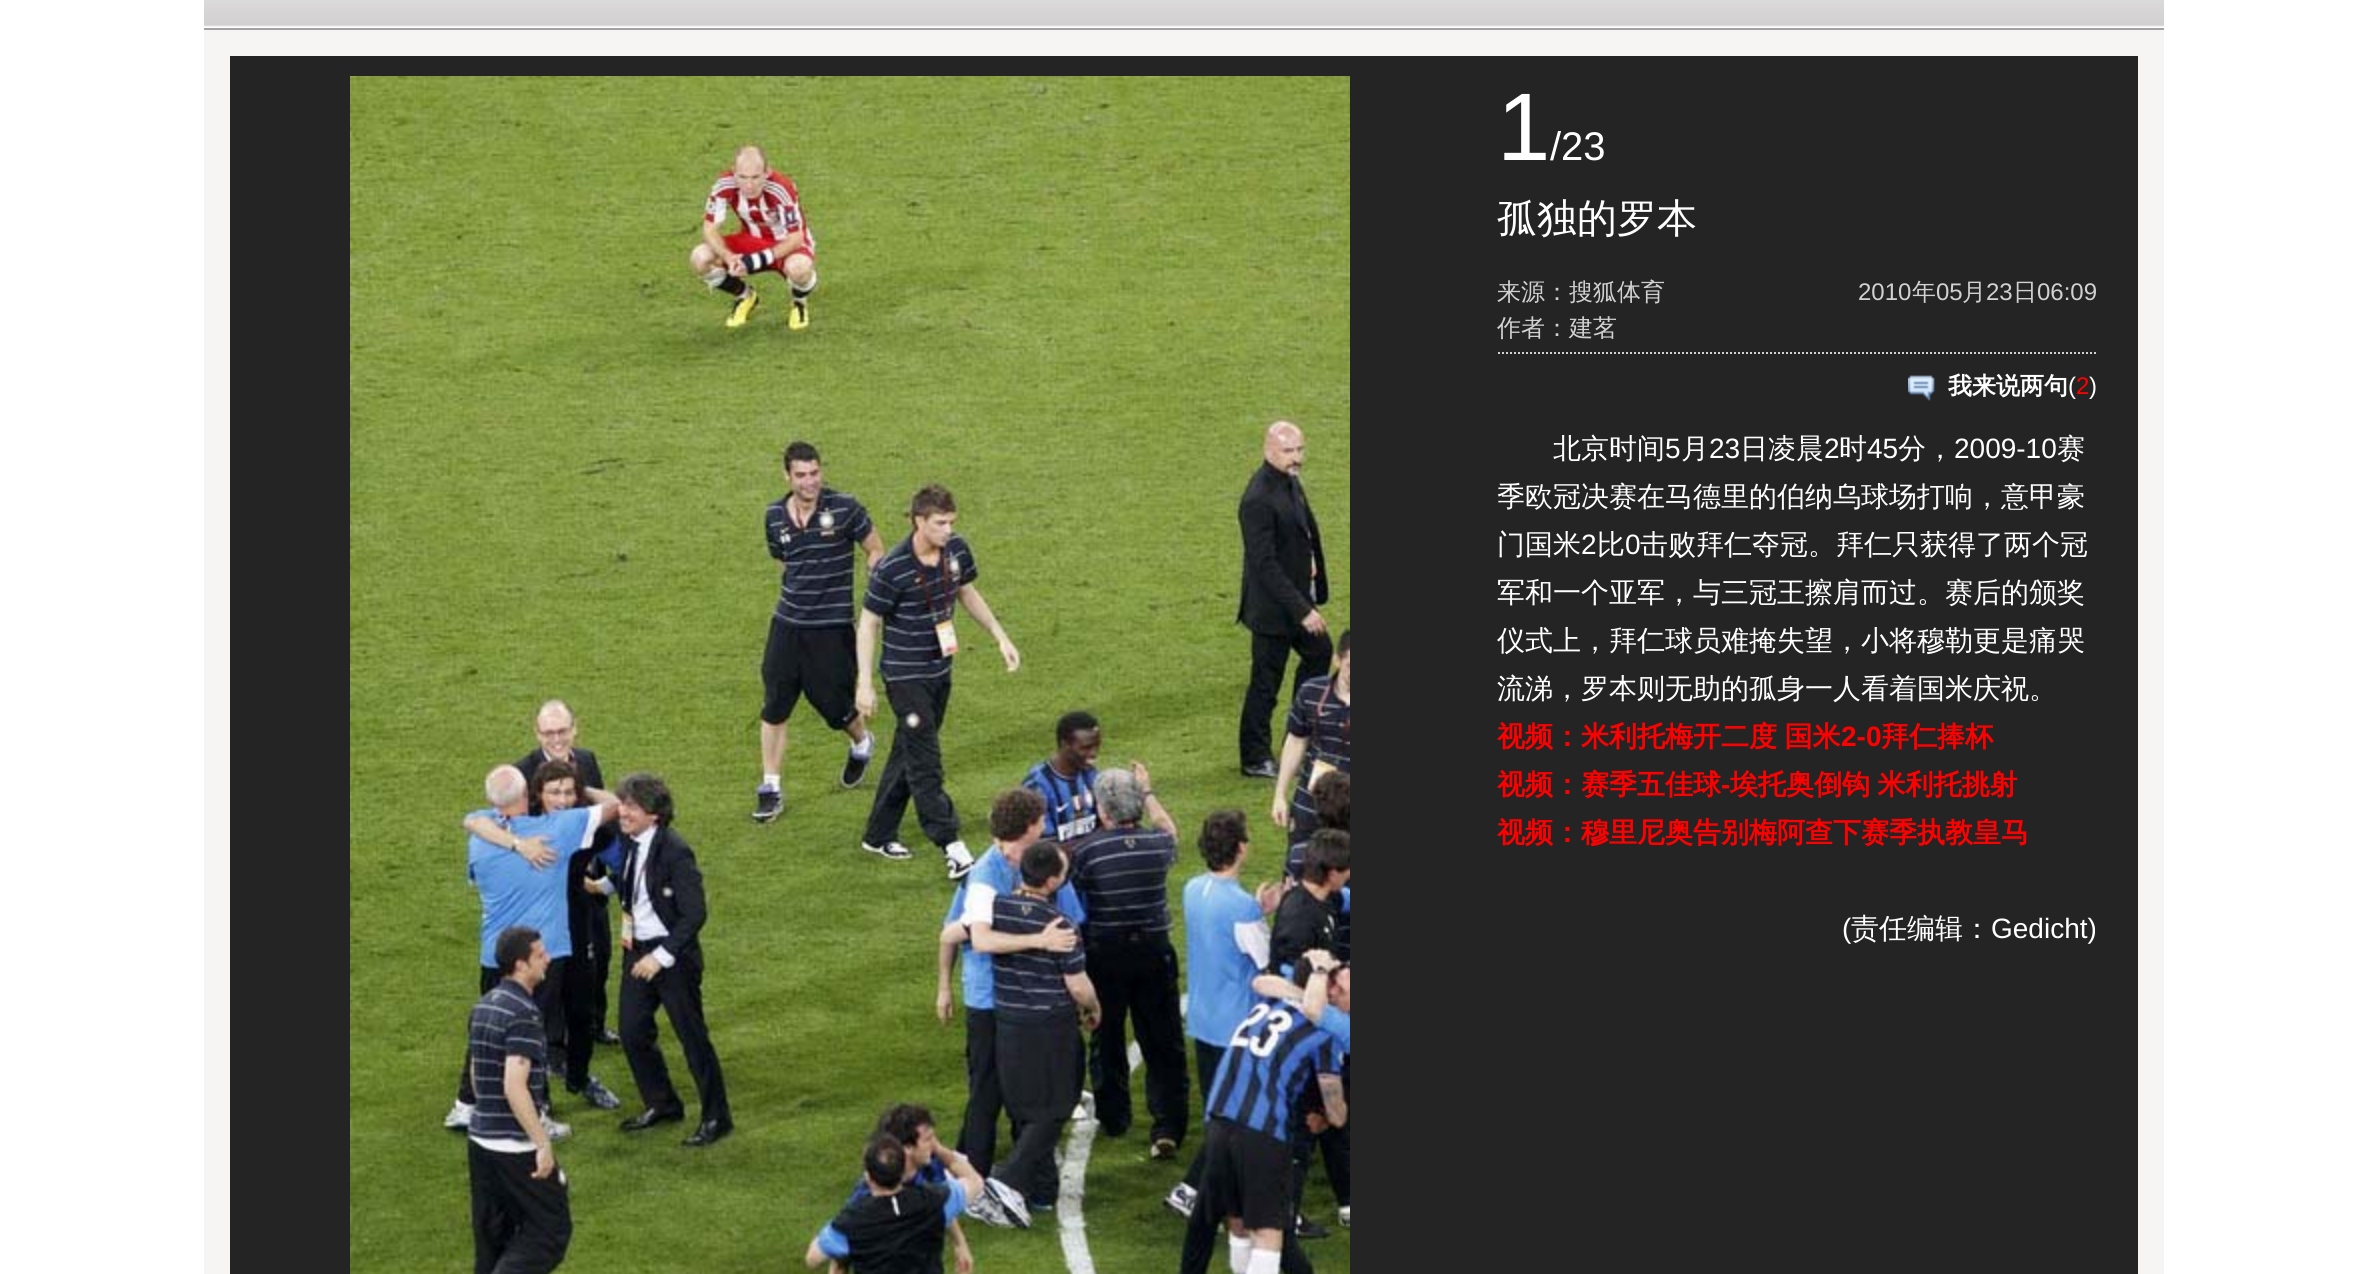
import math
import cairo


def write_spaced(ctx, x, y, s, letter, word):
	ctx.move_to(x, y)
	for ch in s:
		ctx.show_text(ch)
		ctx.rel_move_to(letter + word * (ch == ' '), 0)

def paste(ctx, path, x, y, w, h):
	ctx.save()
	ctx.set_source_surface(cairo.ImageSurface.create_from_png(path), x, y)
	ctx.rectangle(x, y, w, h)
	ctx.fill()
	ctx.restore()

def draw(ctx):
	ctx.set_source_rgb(1, 1, 1)
	ctx.paint()
	ctx.set_source_rgb(0.965, 0.957, 0.957)
	ctx.rectangle(204, 30, 1960, 1244)
	ctx.fill()
	paste(ctx, 'media/1.png', 204, 0, 1960, 28)
	ctx.set_source_rgb(0.635, 0.635, 0.635)
	ctx.rectangle(204, 28, 1960, 2)
	ctx.fill()
	ctx.set_source_rgb(0.141, 0.141, 0.141)
	ctx.rectangle(230, 56, 1908, 1218)
	ctx.fill()
	paste(ctx, 'media/2.png', 350, 76, 1000, 1198)
	ctx.select_font_face('Liberation Sans')
	ctx.set_font_size(96)
	ctx.set_source_rgb(1, 1, 1)
	ctx.move_to(1497, 160)
	ctx.show_text('1')
	ctx.set_font_size(40)
	ctx.move_to(1550, 160)
	ctx.show_text('/23')
	ctx.select_font_face('WenQuanYi Zen Hei Medium')
	ctx.move_to(1497, 232)
	ctx.show_text('孤独的罗本')
	ctx.new_path()
	ctx.move_to(1498, 353)
	ctx.line_to(2098, 353)
	ctx.set_source_rgb(0.82, 0.82, 0.82)
	ctx.set_dash([2, 2])
	ctx.stroke()
	ctx.set_font_size(24)
	ctx.move_to(1497, 300)
	ctx.show_text('来源：搜狐体育')
	ctx.select_font_face('Liberation Sans')
	ctx.move_to(1858, 300)
	ctx.show_text('2010')
	ctx.select_font_face('WenQuanYi Zen Hei Medium')
	ctx.move_to(1912, 300)
	ctx.show_text('年')
	ctx.select_font_face('Liberation Sans')
	ctx.move_to(1936, 300)
	ctx.show_text('05')
	ctx.select_font_face('WenQuanYi Zen Hei Medium')
	ctx.move_to(1962, 300)
	ctx.show_text('月')
	ctx.select_font_face('Liberation Sans')
	ctx.move_to(1986, 300)
	ctx.show_text('23')
	ctx.select_font_face('WenQuanYi Zen Hei Medium')
	ctx.move_to(2013, 300)
	ctx.show_text('日')
	ctx.select_font_face('Liberation Sans')
	ctx.move_to(2037, 300)
	ctx.show_text('06:09')
	ctx.select_font_face('WenQuanYi Zen Hei Medium')
	ctx.move_to(1497, 336)
	ctx.show_text('作者：建茗')
	paste(ctx, 'media/3.png', 1908, 375, 27, 26)
	ctx.select_font_face('WenQuanYi Zen Hei', cairo.FONT_SLANT_NORMAL, cairo.FONT_WEIGHT_BOLD)
	ctx.set_source_rgb(1, 1, 1)
	ctx.move_to(1948, 394)
	ctx.show_text('我来说两句')
	ctx.select_font_face('Liberation Sans')
	ctx.move_to(2068, 394)
	ctx.show_text('(')
	ctx.set_source_rgb(1, 0, 0)
	ctx.move_to(2076, 394)
	ctx.show_text('2')
	ctx.set_source_rgb(1, 1, 1)
	ctx.move_to(2089, 394)
	ctx.show_text(')')
	ctx.select_font_face('WenQuanYi Zen Hei Medium')
	ctx.set_font_size(28)
	ctx.move_to(1553, 458)
	ctx.show_text('北京时间')
	ctx.select_font_face('Liberation Sans')
	ctx.move_to(1665, 458)
	ctx.show_text('5')
	ctx.select_font_face('WenQuanYi Zen Hei Medium')
	ctx.move_to(1681, 458)
	ctx.show_text('月')
	ctx.select_font_face('Liberation Sans')
	ctx.move_to(1709, 458)
	ctx.show_text('23')
	ctx.select_font_face('WenQuanYi Zen Hei Medium')
	ctx.move_to(1740, 458)
	ctx.show_text('日凌晨')
	ctx.select_font_face('Liberation Sans')
	ctx.move_to(1824, 458)
	ctx.show_text('2')
	ctx.select_font_face('WenQuanYi Zen Hei Medium')
	ctx.move_to(1839, 458)
	ctx.show_text('时')
	ctx.select_font_face('Liberation Sans')
	ctx.move_to(1867, 458)
	ctx.show_text('45')
	ctx.select_font_face('WenQuanYi Zen Hei Medium')
	ctx.move_to(1898, 458)
	ctx.show_text('分，')
	ctx.select_font_face('Liberation Sans')
	ctx.move_to(1954, 458)
	ctx.show_text('2009-10')
	ctx.select_font_face('WenQuanYi Zen Hei Medium')
	for x, y, s in [
		(2057, 458, '赛'),
		(1497, 506, '季欧冠决赛在马德里的伯纳乌球场打响，意甲豪'),
		(1497, 554, '门国米'),
	]:
		ctx.move_to(x, y)
		ctx.show_text(s)
	ctx.select_font_face('Liberation Sans')
	ctx.move_to(1581, 554)
	ctx.show_text('2')
	ctx.select_font_face('WenQuanYi Zen Hei Medium')
	ctx.move_to(1597, 554)
	ctx.show_text('比')
	ctx.select_font_face('Liberation Sans')
	ctx.move_to(1625, 554)
	ctx.show_text('0')
	ctx.select_font_face('WenQuanYi Zen Hei Medium')
	for x, y, s in [
		(1640, 554, '击败拜仁夺冠。拜仁只获得了两个冠'),
		(1497, 602, '军和一个亚军，与三冠王擦肩而过。赛后的颁奖'),
		(1497, 650, '仪式上，拜仁球员难掩失望，小将穆勒更是痛哭'),
		(1497, 698, '流涕，罗本则无助的孤身一人看着国米庆祝。'),
	]:
		ctx.move_to(x, y)
		ctx.show_text(s)
	ctx.select_font_face('WenQuanYi Zen Hei', cairo.FONT_SLANT_NORMAL, cairo.FONT_WEIGHT_BOLD)
	ctx.set_source_rgb(1, 0, 0)
	write_spaced(ctx, 1497, 746, '视频：米利托梅开二度 国米', 0, -1)
	ctx.select_font_face('Liberation Sans', cairo.FONT_SLANT_NORMAL, cairo.FONT_WEIGHT_BOLD)
	ctx.move_to(1841, 746)
	ctx.show_text('2-0')
	ctx.select_font_face('WenQuanYi Zen Hei', cairo.FONT_SLANT_NORMAL, cairo.FONT_WEIGHT_BOLD)
	ctx.move_to(1881, 746)
	ctx.show_text('拜仁捧杯')
	ctx.move_to(1497, 794)
	ctx.show_text('视频：赛季五佳球')
	ctx.select_font_face('Liberation Sans', cairo.FONT_SLANT_NORMAL, cairo.FONT_WEIGHT_BOLD)
	ctx.move_to(1721, 794)
	ctx.show_text('-')
	ctx.select_font_face('WenQuanYi Zen Hei', cairo.FONT_SLANT_NORMAL, cairo.FONT_WEIGHT_BOLD)
	write_spaced(ctx, 1730, 794, '埃托奥倒钩 米利托挑射', 0, -1)
	ctx.move_to(1497, 842)
	ctx.show_text('视频：穆里尼奥告别梅阿查下赛季执教皇马')
	ctx.select_font_face('Liberation Sans')
	ctx.set_source_rgb(1, 1, 1)
	ctx.move_to(1842, 938)
	ctx.show_text('(')
	ctx.select_font_face('WenQuanYi Zen Hei Medium')
	ctx.move_to(1851, 938)
	ctx.show_text('责任编辑：')
	ctx.select_font_face('Liberation Sans')
	ctx.move_to(1991, 938)
	ctx.show_text('Gedicht)')


surface = cairo.ImageSurface(cairo.FORMAT_RGB24, 2365, 1274)
ctx = cairo.Context(surface)
options = cairo.FontOptions()
options.set_hint_metrics(cairo.HINT_METRICS_OFF)
options.set_hint_style(cairo.HINT_STYLE_NONE)
ctx.set_font_options(options)
ctx.set_miter_limit(4)
draw(ctx)
surface.write_to_png('image.png')
